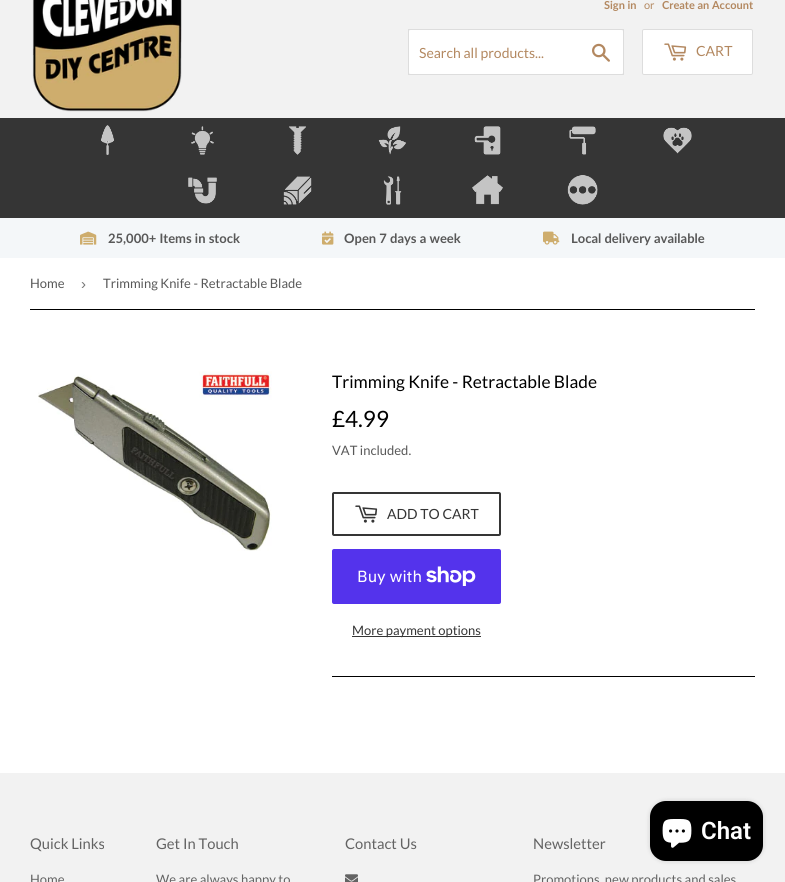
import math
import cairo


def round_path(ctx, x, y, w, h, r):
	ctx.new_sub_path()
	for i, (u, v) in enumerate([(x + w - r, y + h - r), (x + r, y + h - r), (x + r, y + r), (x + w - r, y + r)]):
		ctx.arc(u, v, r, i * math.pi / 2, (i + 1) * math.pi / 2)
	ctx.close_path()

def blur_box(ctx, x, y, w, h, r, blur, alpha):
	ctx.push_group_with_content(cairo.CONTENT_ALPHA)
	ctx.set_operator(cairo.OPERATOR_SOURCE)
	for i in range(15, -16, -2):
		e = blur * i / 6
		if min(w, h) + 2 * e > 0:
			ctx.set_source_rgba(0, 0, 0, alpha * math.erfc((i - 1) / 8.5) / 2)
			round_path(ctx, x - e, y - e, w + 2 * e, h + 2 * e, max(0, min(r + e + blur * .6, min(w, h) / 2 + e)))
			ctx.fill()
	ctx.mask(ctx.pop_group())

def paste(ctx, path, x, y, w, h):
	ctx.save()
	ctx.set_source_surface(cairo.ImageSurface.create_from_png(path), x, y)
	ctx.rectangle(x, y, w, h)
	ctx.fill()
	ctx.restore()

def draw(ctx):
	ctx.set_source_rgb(1, 1, 1)
	ctx.paint()
	ctx.set_source_rgb(0.949, 0.949, 0.949)
	ctx.rectangle(0, 0, 785, 118)
	ctx.fill()
	paste(ctx, 'media/1.png', 32, 0, 150, 112)
	ctx.select_font_face('Lato', cairo.FONT_SLANT_NORMAL, cairo.FONT_WEIGHT_BOLD)
	ctx.set_font_size(11)
	ctx.set_source_rgb(0.702, 0.533, 0.376)
	ctx.move_to(604, 9)
	ctx.show_text('Sign in')
	ctx.select_font_face('Lato')
	ctx.move_to(644, 9)
	ctx.show_text('or')
	ctx.select_font_face('Lato', cairo.FONT_SLANT_NORMAL, cairo.FONT_WEIGHT_BOLD)
	ctx.move_to(662, 9)
	ctx.show_text('Create an Account')
	ctx.rectangle(408.5, 29.5, 215, 45)
	ctx.set_source_rgb(0.867, 0.867, 0.867)
	ctx.set_line_width(1)
	ctx.stroke()
	ctx.set_source_rgb(1, 1, 1)
	round_path(ctx, 409, 30, 214, 44, 2)
	ctx.fill()
	ctx.select_font_face('Lato')
	ctx.set_font_size(14)
	ctx.set_source_rgb(0.702, 0.533, 0.376)
	ctx.move_to(419, 58)
	ctx.show_text('Search all products...')
	paste(ctx, 'media/2.png', 592, 43, 18, 19)
	ctx.set_source_rgb(1, 1, 1)
	round_path(ctx, 642.5, 29.5, 110, 45, 1.5)
	ctx.fill_preserve()
	ctx.set_source_rgb(0.867, 0.867, 0.867)
	ctx.stroke()
	paste(ctx, 'media/3.png', 664, 43, 23, 18)
	ctx.set_source_rgb(0.702, 0.533, 0.376)
	ctx.move_to(696, 56)
	ctx.show_text('CART')
	ctx.set_source_rgb(0.208, 0.208, 0.208)
	ctx.rectangle(0, 118, 785, 100)
	ctx.fill()
	paste(ctx, 'media/4.png', 101, 125, 13, 30)
	paste(ctx, 'media/5.png', 191, 126, 23, 29)
	paste(ctx, 'media/6.png', 289, 126, 17, 29)
	paste(ctx, 'media/7.png', 378, 126, 28, 29)
	paste(ctx, 'media/8.png', 474, 126, 27, 29)
	paste(ctx, 'media/9.png', 569, 126, 27, 29)
	paste(ctx, 'media/10.png', 663, 127, 29, 27)
	paste(ctx, 'media/11.png', 188, 177, 29, 27)
	paste(ctx, 'media/12.png', 283, 176, 29, 29)
	paste(ctx, 'media/13.png', 383, 176, 19, 29)
	paste(ctx, 'media/14.png', 472, 175, 31, 30)
	paste(ctx, 'media/15.png', 567, 175, 31, 30)
	ctx.set_source_rgb(0.957, 0.965, 0.973)
	ctx.rectangle(0, 218, 785, 40)
	ctx.fill()
	paste(ctx, 'media/16.png', 80, 231, 17, 14)
	ctx.select_font_face('Lato', cairo.FONT_SLANT_NORMAL, cairo.FONT_WEIGHT_BOLD)
	ctx.set_font_size(13)
	ctx.set_source_rgb(0.345, 0.345, 0.345)
	ctx.move_to(108, 243)
	ctx.show_text('25,000+ Items in stock')
	paste(ctx, 'media/17.png', 322, 231, 12, 14)
	ctx.move_to(344, 243)
	ctx.show_text('Open 7 days a week')
	paste(ctx, 'media/18.png', 543, 231, 17, 14)
	ctx.move_to(571, 243)
	ctx.show_text('Local delivery available')
	ctx.set_source_rgb(0, 0, 0)
	ctx.rectangle(30, 309, 725, 1)
	ctx.fill()
	ctx.select_font_face('Lato')
	ctx.set_source_rgb(0.345, 0.345, 0.345)
	ctx.move_to(30, 288)
	ctx.show_text('Home')
	ctx.select_font_face('Liberation Sans')
	ctx.set_font_size(15)
	ctx.set_source_rgb(0.463, 0.463, 0.463)
	ctx.move_to(81, 289)
	ctx.show_text('›')
	ctx.select_font_face('Lato')
	ctx.set_font_size(13)
	ctx.set_source_rgb(0.345, 0.345, 0.345)
	ctx.move_to(103, 288)
	ctx.show_text('Trimming Knife - Retractable Blade')
	paste(ctx, 'media/19.png', 38, 371, 234, 180)
	ctx.set_font_size(17.3)
	ctx.set_source_rgb(0, 0, 0)
	ctx.move_to(332, 388)
	ctx.show_text('Trimming Knife - Retractable Blade')
	ctx.set_font_size(22.5)
	ctx.move_to(332, 427)
	ctx.show_text('£4.99')
	ctx.set_font_size(13)
	ctx.set_source_rgb(0.345, 0.345, 0.345)
	ctx.move_to(332, 455)
	ctx.show_text('VAT included.')
	round_path(ctx, 333, 493, 167, 42, 1)
	ctx.set_source_rgb(0.208, 0.208, 0.208)
	ctx.set_line_width(2)
	ctx.stroke()
	paste(ctx, 'media/20.png', 355, 505, 23, 18)
	ctx.set_font_size(14)
	ctx.move_to(387, 519)
	ctx.show_text('ADD TO CART')
	ctx.set_source_rgb(0.329, 0.2, 0.922)
	round_path(ctx, 332, 549, 169, 55, 2)
	ctx.fill()
	ctx.select_font_face('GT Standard')
	ctx.set_font_size(16)
	ctx.set_source_rgb(1, 1, 1)
	ctx.move_to(357, 582)
	ctx.show_text('Buy with')
	paste(ctx, 'media/21.png', 426, 566, 50, 20)
	ctx.set_source_rgb(0.208, 0.208, 0.208)
	ctx.rectangle(352, 636, 129, 1)
	ctx.fill()
	ctx.select_font_face('Lato')
	ctx.set_font_size(13)
	ctx.move_to(352, 635)
	ctx.show_text('More payment options')
	ctx.set_source_rgb(0, 0, 0)
	ctx.rectangle(332, 676, 423, 1)
	ctx.fill()
	ctx.set_source_rgb(0.949, 0.949, 0.949)
	ctx.rectangle(0, 773, 785, 109)
	ctx.fill()
	ctx.set_source_rgb(0, 0, 0)
	blur_box(ctx, 650, 801, 113, 60, 16, 2.5, 0.15)
	ctx.set_source_rgb(0, 0, 0)
	round_path(ctx, 650, 801, 113, 60, 16)
	ctx.fill()
	paste(ctx, 'media/22.png', 662, 819, 30, 29)
	ctx.select_font_face('Roboto SemiBold')
	ctx.set_font_size(24)
	ctx.set_source_rgb(1, 1, 1)
	ctx.move_to(701, 839)
	ctx.show_text('Chat')
	ctx.select_font_face('Lato')
	ctx.set_font_size(14.75)
	ctx.set_source_rgb(0.388, 0.388, 0.388)
	ctx.move_to(30, 849)
	ctx.show_text('Quick Links')
	ctx.set_font_size(13)
	ctx.move_to(30, 884)
	ctx.show_text('Home')
	ctx.set_font_size(14.75)
	ctx.move_to(156, 849)
	ctx.show_text('Get In Touch')
	ctx.set_font_size(13)
	ctx.move_to(156, 884)
	ctx.show_text('We are always happy to')
	ctx.set_font_size(14.75)
	ctx.move_to(345, 849)
	ctx.show_text('Contact Us')
	paste(ctx, 'media/23.png', 345, 874, 13, 8)
	ctx.move_to(533, 849)
	ctx.show_text('Newsletter')
	ctx.set_font_size(13)
	ctx.move_to(533, 884)
	ctx.show_text('Promotions, new products and sales')


surface = cairo.ImageSurface(cairo.FORMAT_RGB24, 785, 882)
ctx = cairo.Context(surface)
options = cairo.FontOptions()
options.set_hint_metrics(cairo.HINT_METRICS_OFF)
options.set_hint_style(cairo.HINT_STYLE_NONE)
ctx.set_font_options(options)
ctx.set_miter_limit(4)
draw(ctx)
surface.write_to_png('image.png')
